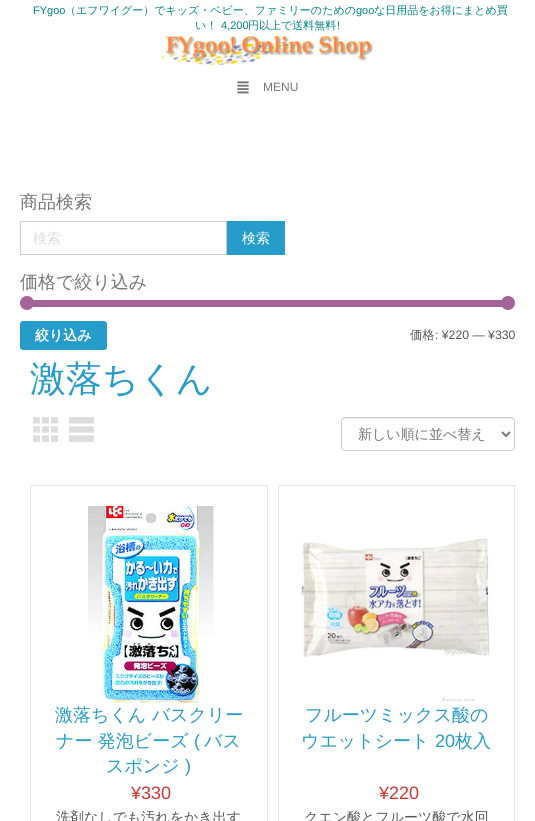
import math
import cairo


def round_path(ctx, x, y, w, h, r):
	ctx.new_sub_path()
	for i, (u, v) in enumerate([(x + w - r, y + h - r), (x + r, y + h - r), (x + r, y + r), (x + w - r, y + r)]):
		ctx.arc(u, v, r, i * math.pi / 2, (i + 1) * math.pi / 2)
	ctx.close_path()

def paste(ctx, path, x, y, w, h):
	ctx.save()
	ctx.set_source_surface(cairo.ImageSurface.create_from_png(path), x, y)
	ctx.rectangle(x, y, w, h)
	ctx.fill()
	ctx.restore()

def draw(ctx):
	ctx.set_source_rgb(1, 1, 1)
	ctx.paint()
	ctx.select_font_face('Liberation Sans')
	ctx.set_font_size(11)
	ctx.set_source_rgb(0, 0.522, 0.522)
	ctx.move_to(33, 14)
	ctx.show_text('FYgoo')
	ctx.select_font_face('WenQuanYi Zen Hei Medium')
	ctx.move_to(65, 14)
	ctx.show_text('（エフワイグー）でキッズ・ベビー、ファミリーのための')
	ctx.select_font_face('Liberation Sans')
	ctx.move_to(356, 14)
	ctx.show_text('goo')
	ctx.select_font_face('WenQuanYi Zen Hei Medium')
	ctx.move_to(374, 14)
	ctx.show_text('な日用品をお得にまとめ買')
	ctx.move_to(195, 29)
	ctx.show_text('い！')
	ctx.select_font_face('Liberation Sans')
	ctx.move_to(221, 29)
	ctx.show_text('4,200')
	ctx.select_font_face('WenQuanYi Zen Hei Medium')
	ctx.move_to(248, 29)
	ctx.show_text('円以上で送料無料')
	ctx.select_font_face('Liberation Sans')
	ctx.move_to(337, 29)
	ctx.show_text('!')
	paste(ctx, 'media/1.png', 160, 35, 213, 30)
	paste(ctx, 'media/2.png', 237, 81, 12, 13)
	ctx.set_font_size(12)
	ctx.set_source_rgb(0.467, 0.467, 0.467)
	ctx.move_to(263, 91)
	ctx.show_text('MENU')
	ctx.select_font_face('WenQuanYi Zen Hei Medium')
	ctx.set_font_size(18)
	ctx.move_to(20, 208)
	ctx.show_text('商品検索')
	ctx.rectangle(20.5, 221.5, 206, 33)
	ctx.set_source_rgb(0.8, 0.8, 0.8)
	ctx.set_line_width(1)
	ctx.stroke()
	ctx.set_font_size(14)
	ctx.set_source_rgb(0.867, 0.867, 0.867)
	ctx.move_to(33, 243)
	ctx.show_text('検索')
	ctx.set_source_rgb(0.149, 0.612, 0.796)
	ctx.rectangle(227, 221, 58, 34)
	ctx.fill()
	ctx.set_source_rgb(1, 1, 1)
	ctx.move_to(242, 243)
	ctx.show_text('検索')
	ctx.set_font_size(18)
	ctx.set_source_rgb(0.467, 0.467, 0.467)
	ctx.move_to(20, 288)
	ctx.show_text('価格で絞り込み')
	ctx.set_source_rgb(0.643, 0.392, 0.592)
	ctx.rectangle(27, 300, 481, 7)
	ctx.fill()
	ctx.arc(27, 303, 7, 0, 2 * math.pi)
	ctx.fill()
	ctx.arc(508, 303, 7, 0, 2 * math.pi)
	ctx.fill()
	ctx.set_source_rgb(0.149, 0.612, 0.796)
	round_path(ctx, 20, 321, 87, 29, 3)
	ctx.fill()
	ctx.select_font_face('WenQuanYi Zen Hei', cairo.FONT_SLANT_NORMAL, cairo.FONT_WEIGHT_BOLD)
	ctx.set_font_size(14)
	ctx.set_source_rgb(1, 1, 1)
	ctx.move_to(35, 340)
	ctx.show_text('絞り込み')
	ctx.select_font_face('WenQuanYi Zen Hei Medium')
	ctx.set_font_size(12.25)
	ctx.set_source_rgb(0.333, 0.333, 0.333)
	ctx.move_to(410, 339)
	ctx.show_text('価格')
	ctx.select_font_face('Liberation Sans')
	ctx.move_to(435, 339)
	ctx.show_text(': ¥220 — ¥330')
	ctx.select_font_face('WenQuanYi Zen Hei Medium')
	ctx.set_font_size(36)
	ctx.set_source_rgb(0.149, 0.612, 0.796)
	ctx.move_to(30, 391)
	ctx.show_text('激落ちくん')
	paste(ctx, 'media/3.png', 33, 417, 25, 25)
	paste(ctx, 'media/4.png', 69, 417, 25, 25)
	ctx.set_source_rgb(0.925, 0.925, 0.925)
	ctx.new_path()
	ctx.move_to(345, 419)
	ctx.line_to(511, 419)
	ctx.curve_to(513, 419, 514, 420, 514, 422)
	ctx.line_to(514, 421)
	ctx.curve_to(514, 419, 513, 418, 511, 418)
	ctx.line_to(345, 418)
	ctx.curve_to(343, 418, 342, 419, 342, 421)
	ctx.line_to(342, 422)
	ctx.curve_to(342, 420, 343, 419, 345, 419)
	ctx.close_path()
	ctx.fill()
	round_path(ctx, 341.5, 417.5, 173, 33, 3.5)
	ctx.set_source_rgb(0.8, 0.8, 0.8)
	ctx.stroke()
	ctx.new_path()
	ctx.move_to(502, 432)
	ctx.line_to(506, 436)
	ctx.line_to(510, 432)
	ctx.set_source_rgb(0.467, 0.467, 0.467)
	ctx.set_line_width(2)
	ctx.stroke()
	ctx.set_font_size(14)
	ctx.move_to(358, 439)
	ctx.show_text('新しい順に並べ替え')
	ctx.rectangle(30.5, 485.5, 237, 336)
	ctx.set_source_rgb(0.902, 0.902, 0.902)
	ctx.set_line_width(1)
	ctx.stroke()
	paste(ctx, 'media/5.png', 88, 506, 126, 197)
	ctx.set_font_size(18)
	ctx.set_source_rgb(0.149, 0.612, 0.796)
	ctx.move_to(55, 721)
	ctx.show_text('激落ちくん バスクリー')
	ctx.move_to(56, 747)
	ctx.show_text('ナー 発泡ビーズ')
	ctx.select_font_face('Liberation Sans')
	ctx.move_to(194, 747)
	ctx.show_text('(')
	ctx.select_font_face('WenQuanYi Zen Hei Medium')
	ctx.move_to(204, 747)
	ctx.show_text('バス')
	ctx.move_to(106, 772)
	ctx.show_text('スポンジ')
	ctx.select_font_face('Liberation Sans')
	ctx.move_to(185, 772)
	ctx.show_text(')')
	ctx.set_source_rgb(0.8, 0.212, 0.2)
	ctx.move_to(131, 799)
	ctx.show_text('¥330')
	ctx.select_font_face('WenQuanYi Zen Hei Medium')
	ctx.set_font_size(14)
	ctx.set_source_rgb(0.333, 0.333, 0.333)
	ctx.move_to(56, 822)
	ctx.show_text('洗剤なしでも汚れをかき出す')
	ctx.rectangle(278.5, 485.5, 236, 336)
	ctx.set_source_rgb(0.902, 0.902, 0.902)
	ctx.stroke()
	paste(ctx, 'media/6.png', 300, 538, 191, 163)
	ctx.set_font_size(18)
	ctx.set_source_rgb(0.149, 0.612, 0.796)
	ctx.move_to(305, 721)
	ctx.show_text('フルーツミックス酸の')
	ctx.move_to(301, 747)
	ctx.show_text('ウエットシート')
	ctx.select_font_face('Liberation Sans')
	ctx.move_to(435, 747)
	ctx.show_text('20')
	ctx.select_font_face('WenQuanYi Zen Hei Medium')
	ctx.move_to(455, 747)
	ctx.show_text('枚入')
	ctx.select_font_face('Liberation Sans')
	ctx.set_source_rgb(0.8, 0.212, 0.2)
	ctx.move_to(379, 799)
	ctx.show_text('¥220')
	ctx.select_font_face('WenQuanYi Zen Hei Medium')
	ctx.set_font_size(14)
	ctx.set_source_rgb(0.333, 0.333, 0.333)
	ctx.move_to(304, 822)
	ctx.show_text('クエン酸とフルーツ酸で水回')


surface = cairo.ImageSurface(cairo.FORMAT_RGB24, 535, 821)
ctx = cairo.Context(surface)
options = cairo.FontOptions()
options.set_hint_metrics(cairo.HINT_METRICS_OFF)
options.set_hint_style(cairo.HINT_STYLE_NONE)
ctx.set_font_options(options)
ctx.set_miter_limit(4)
draw(ctx)
surface.write_to_png('image.png')
